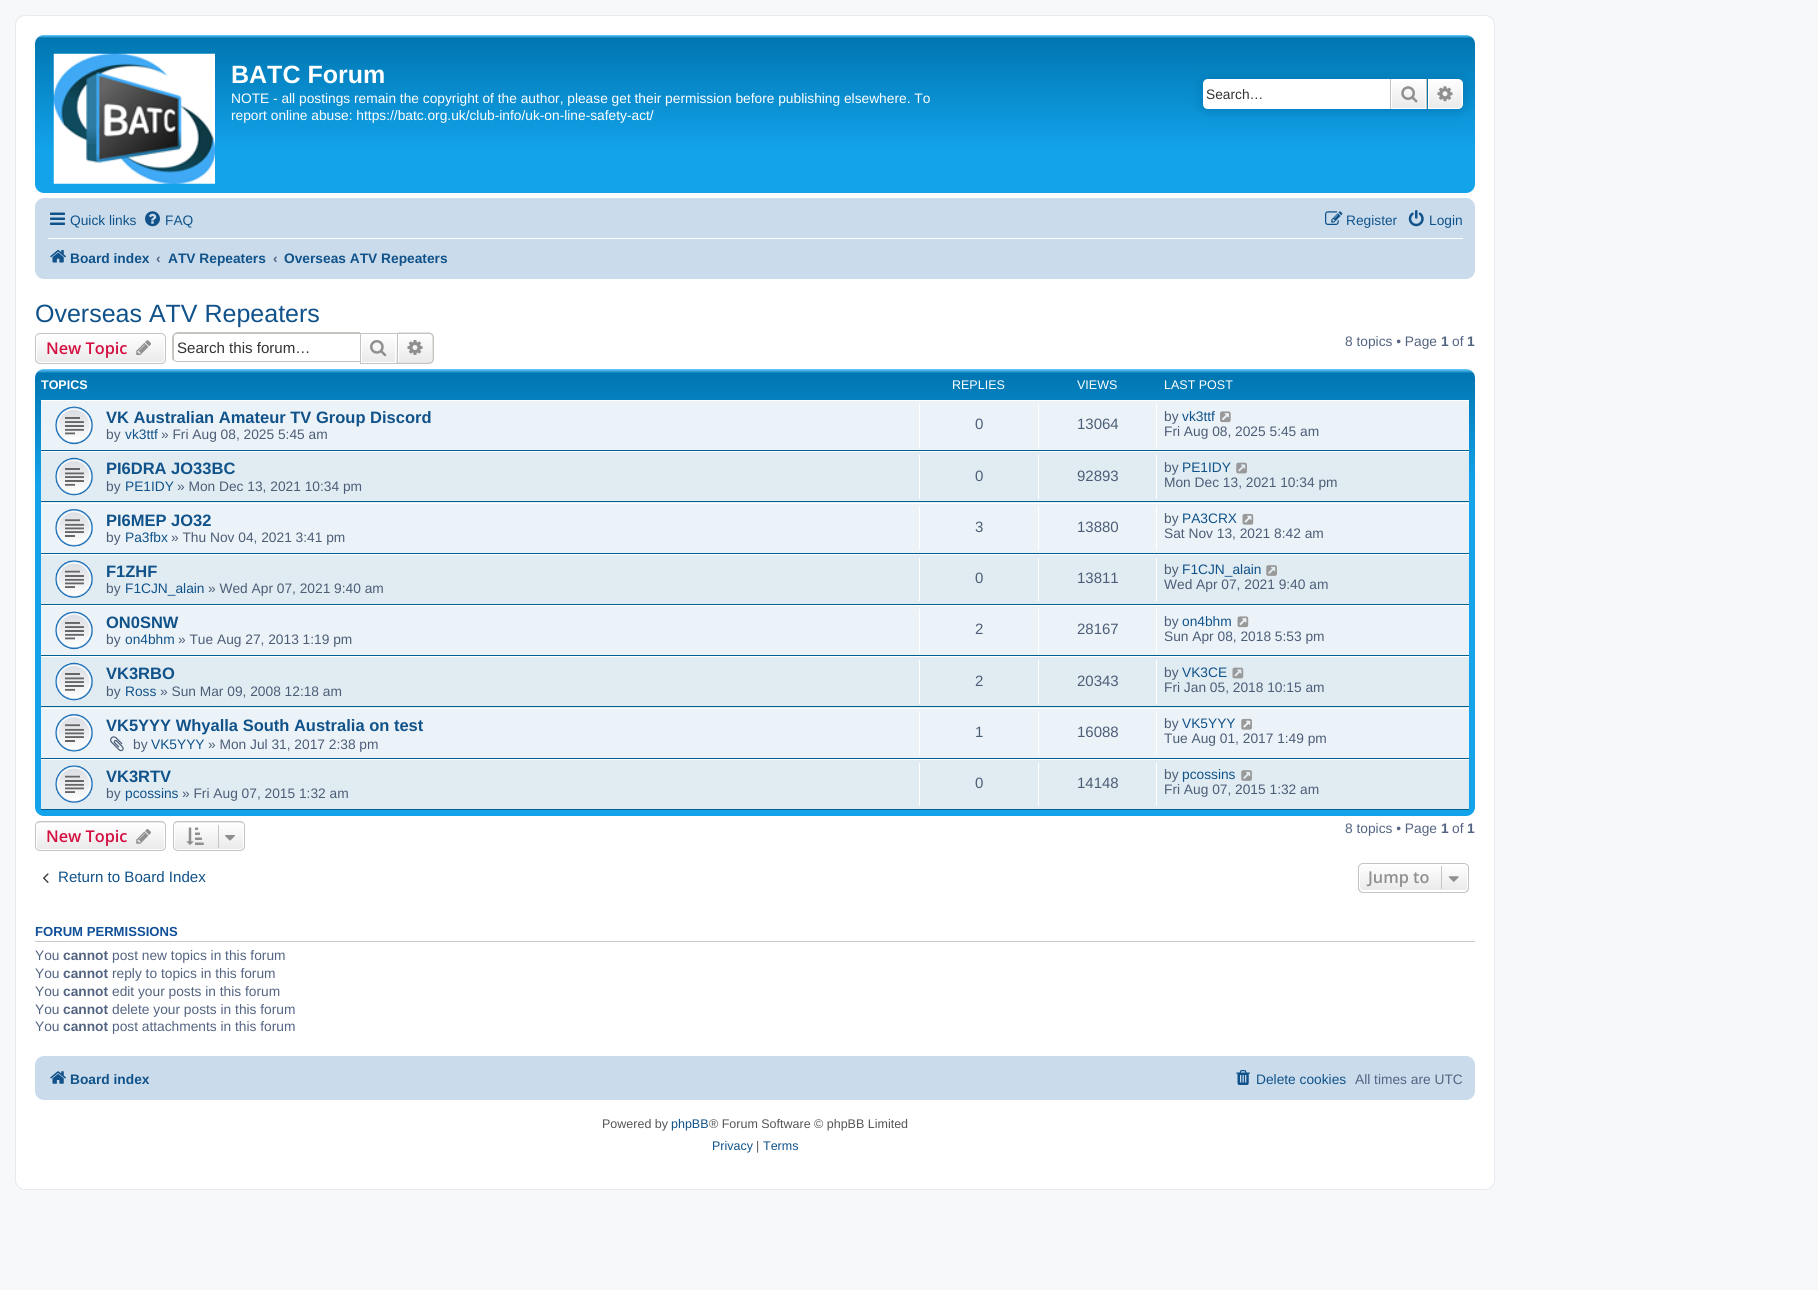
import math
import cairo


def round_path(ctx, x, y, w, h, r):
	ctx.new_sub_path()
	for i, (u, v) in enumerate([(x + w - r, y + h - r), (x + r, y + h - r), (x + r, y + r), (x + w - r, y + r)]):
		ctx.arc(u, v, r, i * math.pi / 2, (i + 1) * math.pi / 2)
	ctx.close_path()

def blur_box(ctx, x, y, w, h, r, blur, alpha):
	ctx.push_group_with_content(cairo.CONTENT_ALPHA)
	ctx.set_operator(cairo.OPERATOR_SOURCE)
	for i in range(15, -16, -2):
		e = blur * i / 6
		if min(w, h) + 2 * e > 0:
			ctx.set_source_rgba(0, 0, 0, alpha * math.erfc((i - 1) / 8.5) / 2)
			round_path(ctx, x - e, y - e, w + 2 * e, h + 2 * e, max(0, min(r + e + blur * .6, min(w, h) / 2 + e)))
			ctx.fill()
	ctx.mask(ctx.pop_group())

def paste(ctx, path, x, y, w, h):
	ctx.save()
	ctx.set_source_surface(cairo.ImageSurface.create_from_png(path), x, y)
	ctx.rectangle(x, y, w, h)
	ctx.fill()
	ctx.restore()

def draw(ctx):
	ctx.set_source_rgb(0.961, 0.969, 0.98)
	ctx.paint()
	ctx.set_source_rgb(1, 1, 1)
	round_path(ctx, 15.5, 15.5, 1479, 1174, 9.5)
	ctx.fill_preserve()
	ctx.set_source_rgb(0.902, 0.914, 0.929)
	ctx.set_line_width(1)
	ctx.stroke()
	gradient = cairo.LinearGradient(755, 35, 755, 193)
	gradient.add_color_stop_rgba(0, 0.416, 0.808, 1, 1)
	gradient.add_color_stop_rgba(0.02, 0, 0.463, 0.694, 1)
	gradient.add_color_stop_rgba(0.73, 0.071, 0.639, 0.922, 1)
	gradient.add_color_stop_rgba(1, 0.071, 0.639, 0.922, 1)
	ctx.set_source(gradient)
	round_path(ctx, 35, 35, 1440, 158, 9)
	ctx.fill()
	paste(ctx, 'media/1.png', 53, 53, 162, 131)
	ctx.select_font_face('Liberation Sans', cairo.FONT_SLANT_NORMAL, cairo.FONT_WEIGHT_BOLD)
	ctx.set_font_size(25)
	ctx.set_source_rgb(1, 1, 1)
	ctx.move_to(231, 83)
	ctx.show_text('BATC Forum')
	ctx.select_font_face('Liberation Sans')
	ctx.set_font_size(13.75)
	ctx.move_to(231, 103)
	ctx.show_text('NOTE - all postings remain the copyright of the author, please get their permission before publishing elsewhere. To')
	ctx.move_to(231, 120)
	ctx.show_text('report online abuse: https://batc.org.uk/club-info/uk-on-line-safety-act/')
	ctx.set_source_rgb(0, 0.459, 0.69)
	blur_box(ctx, 1203, 79, 260, 30, 5, 6, 1)
	ctx.set_source_rgb(1, 1, 1)
	ctx.new_path()
	ctx.move_to(1208, 79)
	ctx.line_to(1390, 79)
	ctx.line_to(1390, 109)
	ctx.line_to(1208, 109)
	ctx.curve_to(1205, 109, 1203, 107, 1203, 104)
	ctx.line_to(1203, 84)
	ctx.curve_to(1203, 81, 1205, 79, 1208, 79)
	ctx.close_path()
	ctx.fill()
	ctx.set_source_rgb(0.2, 0.2, 0.2)
	ctx.move_to(1206, 99)
	ctx.show_text('Search…')
	gradient = cairo.LinearGradient(1409, 79, 1409, 109)
	gradient.add_color_stop_rgba(0, 1, 1, 1, 1)
	gradient.add_color_stop_rgba(1, 0.914, 0.914, 0.914, 1)
	ctx.set_source(gradient)
	ctx.rectangle(1392, 80, 33, 28)
	ctx.fill()
	ctx.rectangle(1391.5, 79.5, 34, 29)
	ctx.set_source_rgb(1, 1, 1)
	ctx.stroke()
	ctx.set_source_rgb(0.78, 0.765, 0.749)
	ctx.rectangle(1426, 79, 1, 30)
	ctx.fill()
	ctx.rectangle(1390, 79, 1, 30)
	ctx.fill()
	paste(ctx, 'media/2.png', 1401, 86, 17, 17)
	gradient = cairo.LinearGradient(1445, 79, 1445, 109)
	gradient.add_color_stop_rgba(0, 1, 1, 1, 1)
	gradient.add_color_stop_rgba(1, 0.914, 0.914, 0.914, 1)
	ctx.set_source(gradient)
	ctx.new_path()
	ctx.move_to(1428.5, 79.5)
	ctx.line_to(1458, 79.5)
	ctx.curve_to(1460.5, 79.5, 1462.5, 81.5, 1462.5, 84)
	ctx.line_to(1462.5, 104)
	ctx.curve_to(1462.5, 106.5, 1460.5, 108.5, 1458, 108.5)
	ctx.line_to(1428.5, 108.5)
	ctx.close_path()
	ctx.fill_preserve()
	ctx.set_source_rgb(1, 1, 1)
	ctx.stroke()
	paste(ctx, 'media/3.png', 1437, 86, 16, 16)
	ctx.set_source_rgb(0.792, 0.863, 0.922)
	round_path(ctx, 35, 198, 1440, 81, 9)
	ctx.fill()
	paste(ctx, 'media/4.png', 50, 212, 15, 13)
	ctx.set_source_rgb(0.063, 0.322, 0.537)
	ctx.move_to(70, 225)
	ctx.show_text('Quick links')
	paste(ctx, 'media/5.png', 145, 211, 15, 16)
	ctx.move_to(165, 225)
	ctx.show_text('FAQ')
	paste(ctx, 'media/6.png', 1325, 211, 18, 14)
	ctx.move_to(1346, 225)
	ctx.show_text('Register')
	paste(ctx, 'media/7.png', 1408, 210, 16, 17)
	ctx.move_to(1429, 225)
	ctx.show_text('Login')
	ctx.set_source_rgb(1, 1, 1)
	ctx.rectangle(48, 238, 1415, 1)
	ctx.fill()
	paste(ctx, 'media/8.png', 50, 250, 16, 13)
	ctx.select_font_face('Liberation Sans', cairo.FONT_SLANT_NORMAL, cairo.FONT_WEIGHT_BOLD)
	ctx.set_source_rgb(0.063, 0.322, 0.537)
	ctx.move_to(70, 263)
	ctx.show_text('Board index')
	ctx.set_source_rgb(0.325, 0.392, 0.51)
	ctx.move_to(156, 263)
	ctx.show_text('‹')
	ctx.set_source_rgb(0.063, 0.322, 0.537)
	ctx.move_to(168, 263)
	ctx.show_text('ATV Repeaters')
	ctx.set_source_rgb(0.325, 0.392, 0.51)
	ctx.move_to(273, 263)
	ctx.show_text('‹')
	ctx.set_source_rgb(0.063, 0.322, 0.537)
	ctx.move_to(284, 263)
	ctx.show_text('Overseas ATV Repeaters')
	ctx.select_font_face('Liberation Sans')
	ctx.set_font_size(25)
	ctx.move_to(35, 322)
	ctx.show_text('Overseas ATV Repeaters')
	ctx.save()
	round_path(ctx, 35, 333, 131, 31, 5)
	ctx.clip()
	gradient = cairo.LinearGradient(101, 334, 101, 363)
	gradient.add_color_stop_rgba(0, 1, 1, 1, 1)
	gradient.add_color_stop_rgba(1, 0.914, 0.914, 0.914, 1)
	ctx.set_source(gradient)
	ctx.rectangle(35, 334, 131, 29)
	ctx.fill()
	ctx.restore()
	round_path(ctx, 36.5, 334.5, 128, 28, 3.5)
	ctx.set_source_rgb(1, 1, 1)
	ctx.stroke()
	round_path(ctx, 35.5, 333.5, 130, 30, 4.5)
	ctx.set_source_rgb(0.78, 0.765, 0.749)
	ctx.stroke()
	ctx.select_font_face('Open Sans SemiBold')
	ctx.set_font_size(16.25)
	ctx.set_source_rgb(0.827, 0.067, 0.255)
	ctx.move_to(46, 354)
	ctx.show_text('New Topic')
	paste(ctx, 'media/9.png', 136, 340, 15, 15)
	ctx.set_source_rgb(0.78, 0.765, 0.749)
	ctx.set_fill_rule(cairo.FILL_RULE_EVEN_ODD)
	ctx.new_path()
	ctx.move_to(178, 332)
	ctx.line_to(360, 332)
	ctx.line_to(360, 362)
	ctx.line_to(178, 362)
	ctx.curve_to(175, 362, 172, 360, 172, 358)
	ctx.line_to(172, 338)
	ctx.curve_to(172, 335, 175, 332, 178, 332)
	ctx.close_path()
	ctx.move_to(178, 334)
	ctx.line_to(360, 334)
	ctx.line_to(360, 361)
	ctx.line_to(178, 361)
	ctx.curve_to(175, 361, 174, 360, 174, 358)
	ctx.line_to(174, 338)
	ctx.curve_to(174, 335, 175, 334, 178, 334)
	ctx.close_path()
	ctx.fill()
	ctx.select_font_face('Liberation Sans')
	ctx.set_font_size(15.1)
	ctx.set_source_rgb(0.2, 0.2, 0.2)
	ctx.move_to(177, 353)
	ctx.show_text('Search this forum…')
	gradient = cairo.LinearGradient(379, 334, 379, 363)
	gradient.add_color_stop_rgba(0, 1, 1, 1, 1)
	gradient.add_color_stop_rgba(1, 0.914, 0.914, 0.914, 1)
	ctx.set_source(gradient)
	ctx.rectangle(362, 337, 35, 26)
	ctx.fill()
	ctx.rectangle(361.5, 334.5, 34, 28)
	ctx.set_source_rgb(1, 1, 1)
	ctx.stroke()
	ctx.rectangle(360.5, 333.5, 37, 30)
	ctx.set_source_rgb(0.78, 0.765, 0.749)
	ctx.stroke()
	paste(ctx, 'media/10.png', 370, 340, 17, 17)
	gradient = cairo.LinearGradient(415, 334, 415, 363)
	gradient.add_color_stop_rgba(0, 1, 1, 1, 1)
	gradient.add_color_stop_rgba(1, 0.914, 0.914, 0.914, 1)
	ctx.set_source(gradient)
	ctx.new_path()
	ctx.move_to(398.5, 334.5)
	ctx.line_to(429, 334.5)
	ctx.curve_to(431, 334.5, 432.5, 336, 432.5, 338)
	ctx.line_to(432.5, 359)
	ctx.curve_to(432.5, 361, 431, 362.5, 429, 362.5)
	ctx.line_to(398.5, 362.5)
	ctx.close_path()
	ctx.fill_preserve()
	ctx.set_source_rgb(1, 1, 1)
	ctx.stroke()
	ctx.set_source_rgb(0.78, 0.765, 0.749)
	ctx.new_path()
	ctx.move_to(397.5, 332.5)
	ctx.line_to(429, 332.5)
	ctx.curve_to(431.5, 332.5, 434, 334.5, 434, 337.5)
	ctx.line_to(434, 359)
	ctx.curve_to(434, 361.5, 431.5, 364, 429, 364)
	ctx.line_to(397.5, 364)
	ctx.close_path()
	ctx.move_to(397.5, 334)
	ctx.line_to(429, 334)
	ctx.curve_to(431, 334, 432.5, 335.5, 432.5, 337.5)
	ctx.line_to(432.5, 359)
	ctx.curve_to(432.5, 361, 431, 362.5, 429, 362.5)
	ctx.line_to(397.5, 362.5)
	ctx.close_path()
	ctx.fill()
	paste(ctx, 'media/11.png', 407, 340, 16, 15)
	ctx.set_font_size(13.75)
	ctx.set_source_rgb(0.325, 0.392, 0.51)
	ctx.move_to(1345, 346)
	ctx.show_text('8 topics • Page')
	ctx.select_font_face('Liberation Sans', cairo.FONT_SLANT_NORMAL, cairo.FONT_WEIGHT_BOLD)
	ctx.move_to(1441, 346)
	ctx.show_text('1')
	ctx.select_font_face('Liberation Sans')
	ctx.move_to(1452, 346)
	ctx.show_text('of')
	ctx.select_font_face('Liberation Sans', cairo.FONT_SLANT_NORMAL, cairo.FONT_WEIGHT_BOLD)
	ctx.move_to(1467, 346)
	ctx.show_text('1')
	gradient = cairo.LinearGradient(755, 369, 755, 816)
	gradient.add_color_stop_rgba(0, 0.416, 0.808, 1, 1)
	gradient.add_color_stop_rgba(0.01, 0, 0.463, 0.694, 1)
	gradient.add_color_stop_rgba(0.26, 0.071, 0.639, 0.922, 1)
	gradient.add_color_stop_rgba(1, 0.071, 0.639, 0.922, 1)
	ctx.set_source(gradient)
	round_path(ctx, 35, 369, 1440, 447, 9)
	ctx.fill()
	ctx.set_font_size(12.5)
	ctx.set_source_rgb(1, 1, 1)
	ctx.move_to(41, 389)
	ctx.show_text('TOPICS')
	ctx.select_font_face('Liberation Sans')
	for x, y, s in [
		(952, 389, 'REPLIES'),
		(1077, 389, 'VIEWS'),
		(1164, 389, 'LAST POST'),
	]:
		ctx.move_to(x, y)
		ctx.show_text(s)
	ctx.set_source_rgb(0.925, 0.953, 0.969)
	ctx.rectangle(41, 401, 1428, 49)
	ctx.fill()
	ctx.set_source_rgb(1, 1, 1)
	ctx.rectangle(41, 400, 1428, 1)
	ctx.fill()
	ctx.set_source_rgb(0, 0.376, 0.561)
	ctx.rectangle(41, 450, 1428, 1)
	ctx.fill()
	paste(ctx, 'media/12.png', 55, 406, 38, 39)
	ctx.select_font_face('Liberation Sans', cairo.FONT_SLANT_NORMAL, cairo.FONT_WEIGHT_BOLD)
	ctx.set_font_size(16.5)
	ctx.set_source_rgb(0.063, 0.322, 0.537)
	ctx.move_to(106, 423)
	ctx.show_text('VK Australian Amateur TV Group Discord')
	ctx.select_font_face('Liberation Sans')
	ctx.set_font_size(13.75)
	ctx.set_source_rgb(0.298, 0.365, 0.467)
	ctx.move_to(106, 439)
	ctx.show_text('by')
	ctx.set_source_rgb(0.063, 0.322, 0.537)
	ctx.move_to(125, 439)
	ctx.show_text('vk3ttf')
	ctx.set_source_rgb(0.298, 0.365, 0.467)
	ctx.move_to(161, 439)
	ctx.show_text('» Fri Aug 08, 2025 5:45 am')
	ctx.set_source_rgb(1, 1, 1)
	ctx.rectangle(919, 404, 1, 44)
	ctx.fill()
	ctx.set_font_size(15)
	ctx.set_source_rgb(0.298, 0.365, 0.467)
	ctx.move_to(975, 429)
	ctx.show_text('0')
	ctx.set_source_rgb(1, 1, 1)
	ctx.rectangle(1038, 404, 1, 44)
	ctx.fill()
	ctx.set_source_rgb(0.298, 0.365, 0.467)
	ctx.move_to(1077, 429)
	ctx.show_text('13064')
	ctx.set_source_rgb(1, 1, 1)
	ctx.rectangle(1156, 404, 1, 44)
	ctx.fill()
	ctx.set_font_size(13.75)
	ctx.set_source_rgb(0.298, 0.365, 0.467)
	ctx.move_to(1164, 421)
	ctx.show_text('by')
	ctx.set_source_rgb(0.063, 0.322, 0.537)
	ctx.move_to(1182, 421)
	ctx.show_text('vk3ttf')
	paste(ctx, 'media/13.png', 1220, 411, 11, 12)
	ctx.set_source_rgb(0.298, 0.365, 0.467)
	ctx.move_to(1164, 436)
	ctx.show_text('Fri Aug 08, 2025 5:45 am')
	ctx.set_source_rgb(0.882, 0.922, 0.949)
	ctx.rectangle(41, 452, 1428, 51)
	ctx.fill()
	ctx.set_source_rgb(1, 1, 1)
	ctx.rectangle(41, 451, 1428, 1)
	ctx.fill()
	ctx.set_source_rgb(0, 0.376, 0.561)
	ctx.rectangle(41, 501, 1428, 1)
	ctx.fill()
	paste(ctx, 'media/14.png', 55, 457, 38, 39)
	ctx.select_font_face('Liberation Sans', cairo.FONT_SLANT_NORMAL, cairo.FONT_WEIGHT_BOLD)
	ctx.set_font_size(16.5)
	ctx.set_source_rgb(0.063, 0.322, 0.537)
	ctx.move_to(106, 474)
	ctx.show_text('PI6DRA JO33BC')
	ctx.select_font_face('Liberation Sans')
	ctx.set_font_size(13.75)
	ctx.set_source_rgb(0.298, 0.365, 0.467)
	ctx.move_to(106, 491)
	ctx.show_text('by')
	ctx.set_source_rgb(0.063, 0.322, 0.537)
	ctx.move_to(125, 491)
	ctx.show_text('PE1IDY')
	ctx.set_source_rgb(0.298, 0.365, 0.467)
	ctx.move_to(177, 491)
	ctx.show_text('» Mon Dec 13, 2021 10:34 pm')
	ctx.set_source_rgb(1, 1, 1)
	ctx.rectangle(919, 455, 1, 44)
	ctx.fill()
	ctx.set_font_size(15)
	ctx.set_source_rgb(0.298, 0.365, 0.467)
	ctx.move_to(975, 481)
	ctx.show_text('0')
	ctx.set_source_rgb(1, 1, 1)
	ctx.rectangle(1038, 455, 1, 44)
	ctx.fill()
	ctx.set_source_rgb(0.298, 0.365, 0.467)
	ctx.move_to(1077, 481)
	ctx.show_text('92893')
	ctx.set_source_rgb(1, 1, 1)
	ctx.rectangle(1156, 455, 1, 44)
	ctx.fill()
	ctx.set_font_size(13.75)
	ctx.set_source_rgb(0.298, 0.365, 0.467)
	ctx.move_to(1164, 472)
	ctx.show_text('by')
	ctx.set_source_rgb(0.063, 0.322, 0.537)
	ctx.move_to(1182, 472)
	ctx.show_text('PE1IDY')
	paste(ctx, 'media/15.png', 1236, 462, 11, 12)
	ctx.set_source_rgb(0.298, 0.365, 0.467)
	ctx.move_to(1164, 487)
	ctx.show_text('Mon Dec 13, 2021 10:34 pm')
	ctx.set_source_rgb(0.925, 0.953, 0.969)
	ctx.rectangle(41, 504, 1428, 49)
	ctx.fill()
	ctx.set_source_rgb(1, 1, 1)
	ctx.rectangle(41, 503, 1428, 1)
	ctx.fill()
	ctx.set_source_rgb(0, 0.376, 0.561)
	ctx.rectangle(41, 553, 1428, 1)
	ctx.fill()
	paste(ctx, 'media/16.png', 55, 508, 38, 39)
	ctx.select_font_face('Liberation Sans', cairo.FONT_SLANT_NORMAL, cairo.FONT_WEIGHT_BOLD)
	ctx.set_font_size(16.5)
	ctx.set_source_rgb(0.063, 0.322, 0.537)
	ctx.move_to(106, 526)
	ctx.show_text('PI6MEP JO32')
	ctx.select_font_face('Liberation Sans')
	ctx.set_font_size(13.75)
	ctx.set_source_rgb(0.298, 0.365, 0.467)
	ctx.move_to(106, 542)
	ctx.show_text('by')
	ctx.set_source_rgb(0.063, 0.322, 0.537)
	ctx.move_to(125, 542)
	ctx.show_text('Pa3fbx')
	ctx.set_source_rgb(0.298, 0.365, 0.467)
	ctx.move_to(171, 542)
	ctx.show_text('» Thu Nov 04, 2021 3:41 pm')
	ctx.set_source_rgb(1, 1, 1)
	ctx.rectangle(919, 506, 1, 44)
	ctx.fill()
	ctx.set_font_size(15)
	ctx.set_source_rgb(0.298, 0.365, 0.467)
	ctx.move_to(975, 532)
	ctx.show_text('3')
	ctx.set_source_rgb(1, 1, 1)
	ctx.rectangle(1038, 506, 1, 44)
	ctx.fill()
	ctx.set_source_rgb(0.298, 0.365, 0.467)
	ctx.move_to(1077, 532)
	ctx.show_text('13880')
	ctx.set_source_rgb(1, 1, 1)
	ctx.rectangle(1156, 506, 1, 44)
	ctx.fill()
	ctx.set_font_size(13.75)
	ctx.set_source_rgb(0.298, 0.365, 0.467)
	ctx.move_to(1164, 523)
	ctx.show_text('by')
	ctx.set_source_rgb(0.063, 0.322, 0.537)
	ctx.move_to(1182, 523)
	ctx.show_text('PA3CRX')
	paste(ctx, 'media/17.png', 1242, 513, 12, 12)
	ctx.set_source_rgb(0.298, 0.365, 0.467)
	ctx.move_to(1164, 538)
	ctx.show_text('Sat Nov 13, 2021 8:42 am')
	ctx.set_source_rgb(0.882, 0.922, 0.949)
	ctx.rectangle(41, 555, 1428, 49)
	ctx.fill()
	ctx.set_source_rgb(1, 1, 1)
	ctx.rectangle(41, 554, 1428, 1)
	ctx.fill()
	ctx.set_source_rgb(0, 0.376, 0.561)
	ctx.rectangle(41, 604, 1428, 1)
	ctx.fill()
	paste(ctx, 'media/18.png', 55, 560, 38, 38)
	ctx.select_font_face('Liberation Sans', cairo.FONT_SLANT_NORMAL, cairo.FONT_WEIGHT_BOLD)
	ctx.set_font_size(16.5)
	ctx.set_source_rgb(0.063, 0.322, 0.537)
	ctx.move_to(106, 577)
	ctx.show_text('F1ZHF')
	ctx.select_font_face('Liberation Sans')
	ctx.set_font_size(13.75)
	ctx.set_source_rgb(0.298, 0.365, 0.467)
	ctx.move_to(106, 593)
	ctx.show_text('by')
	ctx.set_source_rgb(0.063, 0.322, 0.537)
	ctx.move_to(125, 593)
	ctx.show_text('F1CJN_alain')
	ctx.set_source_rgb(0.298, 0.365, 0.467)
	ctx.move_to(208, 593)
	ctx.show_text('» Wed Apr 07, 2021 9:40 am')
	ctx.set_source_rgb(1, 1, 1)
	ctx.rectangle(919, 558, 1, 43)
	ctx.fill()
	ctx.set_font_size(15)
	ctx.set_source_rgb(0.298, 0.365, 0.467)
	ctx.move_to(975, 583)
	ctx.show_text('0')
	ctx.set_source_rgb(1, 1, 1)
	ctx.rectangle(1038, 558, 1, 43)
	ctx.fill()
	ctx.set_source_rgb(0.298, 0.365, 0.467)
	ctx.move_to(1077, 583)
	ctx.show_text('13811')
	ctx.set_source_rgb(1, 1, 1)
	ctx.rectangle(1156, 558, 1, 43)
	ctx.fill()
	ctx.set_font_size(13.75)
	ctx.set_source_rgb(0.298, 0.365, 0.467)
	ctx.move_to(1164, 574)
	ctx.show_text('by')
	ctx.set_source_rgb(0.063, 0.322, 0.537)
	ctx.move_to(1182, 574)
	ctx.show_text('F1CJN_alain')
	paste(ctx, 'media/19.png', 1266, 565, 11, 11)
	ctx.set_source_rgb(0.298, 0.365, 0.467)
	ctx.move_to(1164, 589)
	ctx.show_text('Wed Apr 07, 2021 9:40 am')
	ctx.set_source_rgb(0.925, 0.953, 0.969)
	ctx.rectangle(41, 606, 1428, 49)
	ctx.fill()
	ctx.set_source_rgb(1, 1, 1)
	ctx.rectangle(41, 605, 1428, 1)
	ctx.fill()
	ctx.set_source_rgb(0, 0.376, 0.561)
	ctx.rectangle(41, 655, 1428, 1)
	ctx.fill()
	paste(ctx, 'media/12.png', 55, 611, 38, 39)
	ctx.select_font_face('Liberation Sans', cairo.FONT_SLANT_NORMAL, cairo.FONT_WEIGHT_BOLD)
	ctx.set_font_size(16.5)
	ctx.set_source_rgb(0.063, 0.322, 0.537)
	ctx.move_to(106, 628)
	ctx.show_text('ON0SNW')
	ctx.select_font_face('Liberation Sans')
	ctx.set_font_size(13.75)
	ctx.set_source_rgb(0.298, 0.365, 0.467)
	ctx.move_to(106, 644)
	ctx.show_text('by')
	ctx.set_source_rgb(0.063, 0.322, 0.537)
	ctx.move_to(125, 644)
	ctx.show_text('on4bhm')
	ctx.set_source_rgb(0.298, 0.365, 0.467)
	ctx.move_to(178, 644)
	ctx.show_text('» Tue Aug 27, 2013 1:19 pm')
	ctx.set_source_rgb(1, 1, 1)
	ctx.rectangle(919, 609, 1, 44)
	ctx.fill()
	ctx.set_font_size(15)
	ctx.set_source_rgb(0.298, 0.365, 0.467)
	ctx.move_to(975, 634)
	ctx.show_text('2')
	ctx.set_source_rgb(1, 1, 1)
	ctx.rectangle(1038, 609, 1, 44)
	ctx.fill()
	ctx.set_source_rgb(0.298, 0.365, 0.467)
	ctx.move_to(1077, 634)
	ctx.show_text('28167')
	ctx.set_source_rgb(1, 1, 1)
	ctx.rectangle(1156, 609, 1, 44)
	ctx.fill()
	ctx.set_font_size(13.75)
	ctx.set_source_rgb(0.298, 0.365, 0.467)
	ctx.move_to(1164, 626)
	ctx.show_text('by')
	ctx.set_source_rgb(0.063, 0.322, 0.537)
	ctx.move_to(1182, 626)
	ctx.show_text('on4bhm')
	paste(ctx, 'media/20.png', 1237, 616, 12, 12)
	ctx.set_source_rgb(0.298, 0.365, 0.467)
	ctx.move_to(1164, 641)
	ctx.show_text('Sun Apr 08, 2018 5:53 pm')
	ctx.set_source_rgb(0.882, 0.922, 0.949)
	ctx.rectangle(41, 657, 1428, 51)
	ctx.fill()
	ctx.set_source_rgb(1, 1, 1)
	ctx.rectangle(41, 656, 1428, 1)
	ctx.fill()
	ctx.set_source_rgb(0, 0.376, 0.561)
	ctx.rectangle(41, 706, 1428, 1)
	ctx.fill()
	paste(ctx, 'media/14.png', 55, 662, 38, 39)
	ctx.select_font_face('Liberation Sans', cairo.FONT_SLANT_NORMAL, cairo.FONT_WEIGHT_BOLD)
	ctx.set_font_size(16.5)
	ctx.set_source_rgb(0.063, 0.322, 0.537)
	ctx.move_to(106, 679)
	ctx.show_text('VK3RBO')
	ctx.select_font_face('Liberation Sans')
	ctx.set_font_size(13.75)
	ctx.set_source_rgb(0.298, 0.365, 0.467)
	ctx.move_to(106, 696)
	ctx.show_text('by')
	ctx.set_source_rgb(0.063, 0.322, 0.537)
	ctx.move_to(125, 696)
	ctx.show_text('Ross')
	ctx.set_source_rgb(0.298, 0.365, 0.467)
	ctx.move_to(160, 696)
	ctx.show_text('» Sun Mar 09, 2008 12:18 am')
	ctx.set_source_rgb(1, 1, 1)
	ctx.rectangle(919, 660, 1, 44)
	ctx.fill()
	ctx.set_font_size(15)
	ctx.set_source_rgb(0.298, 0.365, 0.467)
	ctx.move_to(975, 686)
	ctx.show_text('2')
	ctx.set_source_rgb(1, 1, 1)
	ctx.rectangle(1038, 660, 1, 44)
	ctx.fill()
	ctx.set_source_rgb(0.298, 0.365, 0.467)
	ctx.move_to(1077, 686)
	ctx.show_text('20343')
	ctx.set_source_rgb(1, 1, 1)
	ctx.rectangle(1156, 660, 1, 44)
	ctx.fill()
	ctx.set_font_size(13.75)
	ctx.set_source_rgb(0.298, 0.365, 0.467)
	ctx.move_to(1164, 677)
	ctx.show_text('by')
	ctx.set_source_rgb(0.063, 0.322, 0.537)
	ctx.move_to(1182, 677)
	ctx.show_text('VK3CE')
	paste(ctx, 'media/21.png', 1232, 667, 12, 12)
	ctx.set_source_rgb(0.298, 0.365, 0.467)
	ctx.move_to(1164, 692)
	ctx.show_text('Fri Jan 05, 2018 10:15 am')
	ctx.set_source_rgb(0.925, 0.953, 0.969)
	ctx.rectangle(41, 709, 1428, 49)
	ctx.fill()
	ctx.set_source_rgb(1, 1, 1)
	ctx.rectangle(41, 708, 1428, 1)
	ctx.fill()
	ctx.set_source_rgb(0, 0.376, 0.561)
	ctx.rectangle(41, 758, 1428, 1)
	ctx.fill()
	paste(ctx, 'media/16.png', 55, 713, 38, 39)
	ctx.select_font_face('Liberation Sans', cairo.FONT_SLANT_NORMAL, cairo.FONT_WEIGHT_BOLD)
	ctx.set_font_size(16.5)
	ctx.set_source_rgb(0.063, 0.322, 0.537)
	ctx.move_to(106, 731)
	ctx.show_text('VK5YYY Whyalla South Australia on test')
	paste(ctx, 'media/22.png', 110, 736, 14, 16)
	ctx.select_font_face('Liberation Sans')
	ctx.set_font_size(13.75)
	ctx.set_source_rgb(0.298, 0.365, 0.467)
	ctx.move_to(133, 749)
	ctx.show_text('by')
	ctx.set_source_rgb(0.063, 0.322, 0.537)
	ctx.move_to(151, 749)
	ctx.show_text('VK5YYY')
	ctx.set_source_rgb(0.298, 0.365, 0.467)
	ctx.move_to(208, 749)
	ctx.show_text('» Mon Jul 31, 2017 2:38 pm')
	ctx.set_source_rgb(1, 1, 1)
	ctx.rectangle(919, 711, 1, 44)
	ctx.fill()
	ctx.set_font_size(15)
	ctx.set_source_rgb(0.298, 0.365, 0.467)
	ctx.move_to(975, 737)
	ctx.show_text('1')
	ctx.set_source_rgb(1, 1, 1)
	ctx.rectangle(1038, 711, 1, 44)
	ctx.fill()
	ctx.set_source_rgb(0.298, 0.365, 0.467)
	ctx.move_to(1077, 737)
	ctx.show_text('16088')
	ctx.set_source_rgb(1, 1, 1)
	ctx.rectangle(1156, 711, 1, 44)
	ctx.fill()
	ctx.set_font_size(13.75)
	ctx.set_source_rgb(0.298, 0.365, 0.467)
	ctx.move_to(1164, 728)
	ctx.show_text('by')
	ctx.set_source_rgb(0.063, 0.322, 0.537)
	ctx.move_to(1182, 728)
	ctx.show_text('VK5YYY')
	paste(ctx, 'media/23.png', 1241, 718, 11, 12)
	ctx.set_source_rgb(0.298, 0.365, 0.467)
	ctx.move_to(1164, 743)
	ctx.show_text('Tue Aug 01, 2017 1:49 pm')
	ctx.set_source_rgb(0.882, 0.922, 0.949)
	ctx.rectangle(41, 760, 1428, 49)
	ctx.fill()
	ctx.set_source_rgb(1, 1, 1)
	ctx.rectangle(41, 759, 1428, 1)
	ctx.fill()
	ctx.set_source_rgb(0, 0.376, 0.561)
	ctx.rectangle(41, 809, 1428, 1)
	ctx.fill()
	paste(ctx, 'media/24.png', 55, 765, 38, 38)
	ctx.select_font_face('Liberation Sans', cairo.FONT_SLANT_NORMAL, cairo.FONT_WEIGHT_BOLD)
	ctx.set_font_size(16.5)
	ctx.set_source_rgb(0.063, 0.322, 0.537)
	ctx.move_to(106, 782)
	ctx.show_text('VK3RTV')
	ctx.select_font_face('Liberation Sans')
	ctx.set_font_size(13.75)
	ctx.set_source_rgb(0.298, 0.365, 0.467)
	ctx.move_to(106, 798)
	ctx.show_text('by')
	ctx.set_source_rgb(0.063, 0.322, 0.537)
	ctx.move_to(125, 798)
	ctx.show_text('pcossins')
	ctx.set_source_rgb(0.298, 0.365, 0.467)
	ctx.move_to(182, 798)
	ctx.show_text('» Fri Aug 07, 2015 1:32 am')
	ctx.set_source_rgb(1, 1, 1)
	ctx.rectangle(919, 763, 1, 43)
	ctx.fill()
	ctx.set_font_size(15)
	ctx.set_source_rgb(0.298, 0.365, 0.467)
	ctx.move_to(975, 788)
	ctx.show_text('0')
	ctx.set_source_rgb(1, 1, 1)
	ctx.rectangle(1038, 763, 1, 43)
	ctx.fill()
	ctx.set_source_rgb(0.298, 0.365, 0.467)
	ctx.move_to(1077, 788)
	ctx.show_text('14148')
	ctx.set_source_rgb(1, 1, 1)
	ctx.rectangle(1156, 763, 1, 43)
	ctx.fill()
	ctx.set_font_size(13.75)
	ctx.set_source_rgb(0.298, 0.365, 0.467)
	ctx.move_to(1164, 779)
	ctx.show_text('by')
	ctx.set_source_rgb(0.063, 0.322, 0.537)
	ctx.move_to(1182, 779)
	ctx.show_text('pcossins')
	paste(ctx, 'media/19.png', 1241, 770, 11, 11)
	ctx.set_source_rgb(0.298, 0.365, 0.467)
	ctx.move_to(1164, 794)
	ctx.show_text('Fri Aug 07, 2015 1:32 am')
	ctx.save()
	ctx.set_fill_rule(cairo.FILL_RULE_WINDING)
	round_path(ctx, 35, 821, 131, 30, 5)
	ctx.clip()
	gradient = cairo.LinearGradient(101, 795, 101, 823)
	gradient.add_color_stop_rgba(0, 1, 1, 1, 1)
	gradient.add_color_stop_rgba(1, 0.914, 0.914, 0.914, 1)
	ctx.set_source(gradient)
	ctx.rectangle(35, 821, 131, 2)
	ctx.fill()
	gradient = cairo.LinearGradient(101, 823, 101, 850)
	gradient.add_color_stop_rgba(0, 1, 1, 1, 1)
	gradient.add_color_stop_rgba(1, 0.914, 0.914, 0.914, 1)
	ctx.set_source(gradient)
	ctx.rectangle(35, 823, 131, 27)
	ctx.fill()
	ctx.restore()
	round_path(ctx, 36.5, 823.5, 128, 26, 3.5)
	ctx.set_source_rgb(1, 1, 1)
	ctx.stroke()
	round_path(ctx, 35.5, 821.5, 130, 29, 4.5)
	ctx.set_source_rgb(0.78, 0.765, 0.749)
	ctx.stroke()
	ctx.select_font_face('Open Sans SemiBold')
	ctx.set_font_size(16.25)
	ctx.set_source_rgb(0.827, 0.067, 0.255)
	ctx.move_to(46, 842)
	ctx.show_text('New Topic')
	paste(ctx, 'media/25.png', 136, 829, 15, 15)
	ctx.save()
	ctx.set_fill_rule(cairo.FILL_RULE_WINDING)
	round_path(ctx, 173, 821, 72, 30, 5)
	ctx.clip()
	gradient = cairo.LinearGradient(209, 795, 209, 823)
	gradient.add_color_stop_rgba(0, 1, 1, 1, 1)
	gradient.add_color_stop_rgba(1, 0.914, 0.914, 0.914, 1)
	ctx.set_source(gradient)
	ctx.rectangle(173, 821, 72, 2)
	ctx.fill()
	gradient = cairo.LinearGradient(209, 823, 209, 850)
	gradient.add_color_stop_rgba(0, 1, 1, 1, 1)
	gradient.add_color_stop_rgba(1, 0.914, 0.914, 0.914, 1)
	ctx.set_source(gradient)
	ctx.rectangle(173, 823, 72, 27)
	ctx.fill()
	ctx.restore()
	round_path(ctx, 174.5, 823.5, 69, 26, 3.5)
	ctx.set_source_rgb(1, 1, 1)
	ctx.stroke()
	round_path(ctx, 173.5, 821.5, 71, 29, 4.5)
	ctx.set_source_rgb(0.78, 0.765, 0.749)
	ctx.stroke()
	paste(ctx, 'media/26.png', 186, 827, 18, 18)
	ctx.rectangle(218, 825, 1, 23)
	ctx.fill()
	paste(ctx, 'media/27.png', 225, 835, 10, 6)
	ctx.select_font_face('Liberation Sans')
	ctx.set_font_size(13.75)
	ctx.set_source_rgb(0.325, 0.392, 0.51)
	ctx.move_to(1345, 833)
	ctx.show_text('8 topics • Page')
	ctx.select_font_face('Liberation Sans', cairo.FONT_SLANT_NORMAL, cairo.FONT_WEIGHT_BOLD)
	ctx.move_to(1441, 833)
	ctx.show_text('1')
	ctx.select_font_face('Liberation Sans')
	ctx.move_to(1452, 833)
	ctx.show_text('of')
	ctx.select_font_face('Liberation Sans', cairo.FONT_SLANT_NORMAL, cairo.FONT_WEIGHT_BOLD)
	ctx.move_to(1467, 833)
	ctx.show_text('1')
	paste(ctx, 'media/28.png', 43, 873, 6, 10)
	ctx.select_font_face('Liberation Sans')
	ctx.set_font_size(15.1)
	ctx.set_source_rgb(0.063, 0.322, 0.537)
	ctx.move_to(58, 882)
	ctx.show_text('Return to Board Index')
	ctx.save()
	ctx.set_fill_rule(cairo.FILL_RULE_WINDING)
	round_path(ctx, 1358, 863, 111, 30, 5)
	ctx.clip()
	gradient = cairo.LinearGradient(1413, 864, 1413, 891)
	gradient.add_color_stop_rgba(0, 1, 1, 1, 1)
	gradient.add_color_stop_rgba(1, 0.914, 0.914, 0.914, 1)
	ctx.set_source(gradient)
	ctx.rectangle(1358, 864, 111, 27)
	ctx.fill()
	ctx.restore()
	round_path(ctx, 1359.5, 864.5, 108, 26, 3.5)
	ctx.set_source_rgb(1, 1, 1)
	ctx.stroke()
	round_path(ctx, 1358.5, 863.5, 110, 29, 4.5)
	ctx.set_source_rgb(0.78, 0.765, 0.749)
	ctx.stroke()
	ctx.select_font_face('Open Sans SemiBold')
	ctx.set_font_size(16.25)
	ctx.set_source_rgb(0.561, 0.561, 0.561)
	ctx.move_to(1368, 883)
	ctx.show_text('Jump to')
	ctx.set_source_rgb(0.78, 0.765, 0.749)
	ctx.rectangle(1441, 866, 1, 23)
	ctx.fill()
	paste(ctx, 'media/29.png', 1448, 876, 11, 6)
	ctx.set_source_rgb(0.8, 0.8, 0.8)
	ctx.rectangle(35, 941, 1440, 1)
	ctx.fill()
	ctx.select_font_face('Liberation Sans', cairo.FONT_SLANT_NORMAL, cairo.FONT_WEIGHT_BOLD)
	ctx.set_font_size(13.1)
	ctx.set_source_rgb(0.067, 0.314, 0.596)
	ctx.move_to(35, 936)
	ctx.show_text('FORUM PERMISSIONS')
	ctx.select_font_face('Liberation Sans')
	ctx.set_font_size(13.75)
	ctx.set_source_rgb(0.325, 0.392, 0.51)
	ctx.move_to(35, 960)
	ctx.show_text('You')
	ctx.select_font_face('Liberation Sans', cairo.FONT_SLANT_NORMAL, cairo.FONT_WEIGHT_BOLD)
	ctx.move_to(63, 960)
	ctx.show_text('cannot')
	ctx.select_font_face('Liberation Sans')
	ctx.move_to(112, 960)
	ctx.show_text('post new topics in this forum')
	ctx.move_to(35, 978)
	ctx.show_text('You')
	ctx.select_font_face('Liberation Sans', cairo.FONT_SLANT_NORMAL, cairo.FONT_WEIGHT_BOLD)
	ctx.move_to(63, 978)
	ctx.show_text('cannot')
	ctx.select_font_face('Liberation Sans')
	ctx.move_to(112, 978)
	ctx.show_text('reply to topics in this forum')
	ctx.move_to(35, 996)
	ctx.show_text('You')
	ctx.select_font_face('Liberation Sans', cairo.FONT_SLANT_NORMAL, cairo.FONT_WEIGHT_BOLD)
	ctx.move_to(63, 996)
	ctx.show_text('cannot')
	ctx.select_font_face('Liberation Sans')
	ctx.move_to(112, 996)
	ctx.show_text('edit your posts in this forum')
	ctx.move_to(35, 1014)
	ctx.show_text('You')
	ctx.select_font_face('Liberation Sans', cairo.FONT_SLANT_NORMAL, cairo.FONT_WEIGHT_BOLD)
	ctx.move_to(63, 1014)
	ctx.show_text('cannot')
	ctx.select_font_face('Liberation Sans')
	ctx.move_to(112, 1014)
	ctx.show_text('delete your posts in this forum')
	ctx.move_to(35, 1031)
	ctx.show_text('You')
	ctx.select_font_face('Liberation Sans', cairo.FONT_SLANT_NORMAL, cairo.FONT_WEIGHT_BOLD)
	ctx.move_to(63, 1031)
	ctx.show_text('cannot')
	ctx.select_font_face('Liberation Sans')
	ctx.move_to(112, 1031)
	ctx.show_text('post attachments in this forum')
	ctx.set_source_rgb(0.792, 0.863, 0.922)
	round_path(ctx, 35, 1056, 1440, 44, 9)
	ctx.fill()
	paste(ctx, 'media/30.png', 50, 1071, 16, 13)
	ctx.select_font_face('Liberation Sans', cairo.FONT_SLANT_NORMAL, cairo.FONT_WEIGHT_BOLD)
	ctx.set_source_rgb(0.063, 0.322, 0.537)
	ctx.move_to(70, 1084)
	ctx.show_text('Board index')
	paste(ctx, 'media/31.png', 1236, 1070, 14, 15)
	ctx.select_font_face('Liberation Sans')
	ctx.move_to(1256, 1084)
	ctx.show_text('Delete cookies')
	ctx.set_source_rgb(0.325, 0.392, 0.51)
	ctx.move_to(1355, 1084)
	ctx.show_text('All times are UTC')
	ctx.set_font_size(12.5)
	ctx.set_source_rgb(0.333, 0.333, 0.333)
	ctx.move_to(602, 1128)
	ctx.show_text('Powered by')
	ctx.set_source_rgb(0.063, 0.322, 0.537)
	ctx.move_to(671, 1128)
	ctx.show_text('phpBB')
	ctx.set_source_rgb(0.333, 0.333, 0.333)
	ctx.move_to(709, 1128)
	ctx.show_text('® Forum Software © phpBB Limited')
	ctx.set_source_rgb(0.063, 0.322, 0.537)
	ctx.move_to(712, 1150)
	ctx.show_text('Privacy')
	ctx.set_source_rgb(0.333, 0.333, 0.333)
	ctx.move_to(756, 1150)
	ctx.show_text('|')
	ctx.set_source_rgb(0.063, 0.322, 0.537)
	ctx.move_to(763, 1150)
	ctx.show_text('Terms')


surface = cairo.ImageSurface(cairo.FORMAT_RGB24, 1818, 1290)
ctx = cairo.Context(surface)
options = cairo.FontOptions()
options.set_hint_metrics(cairo.HINT_METRICS_OFF)
options.set_hint_style(cairo.HINT_STYLE_NONE)
ctx.set_font_options(options)
ctx.set_miter_limit(4)
draw(ctx)
surface.write_to_png('image.png')
